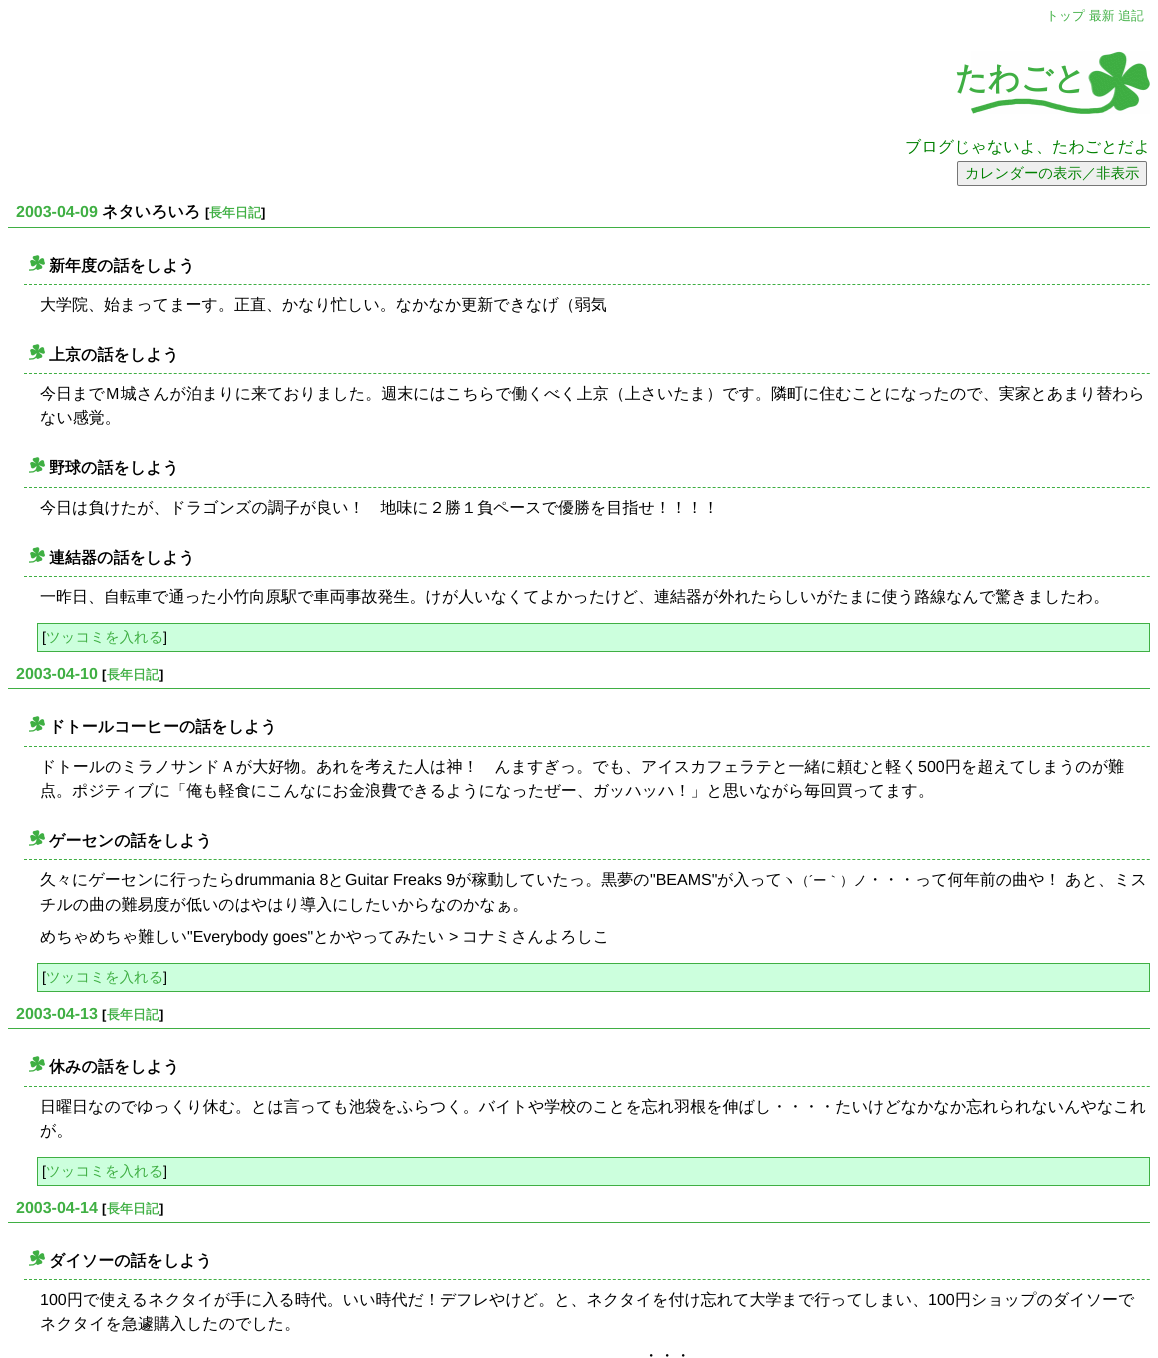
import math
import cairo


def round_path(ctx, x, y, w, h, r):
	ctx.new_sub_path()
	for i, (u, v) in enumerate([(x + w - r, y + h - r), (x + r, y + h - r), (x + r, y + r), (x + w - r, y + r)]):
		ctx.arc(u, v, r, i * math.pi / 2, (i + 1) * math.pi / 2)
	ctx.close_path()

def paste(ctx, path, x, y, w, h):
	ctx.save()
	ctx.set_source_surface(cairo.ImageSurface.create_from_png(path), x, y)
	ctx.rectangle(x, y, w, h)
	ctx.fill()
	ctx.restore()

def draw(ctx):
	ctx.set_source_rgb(1, 1, 1)
	ctx.paint()
	ctx.select_font_face('WenQuanYi Zen Hei Medium')
	ctx.set_font_size(12.75)
	ctx.set_source_rgb(0.247, 0.686, 0.263)
	ctx.move_to(1046, 20)
	ctx.show_text('トップ 最新 追記')
	paste(ctx, 'media/1.png', 971, 51, 179, 63)
	ctx.select_font_face('WenQuanYi Zen Hei', cairo.FONT_SLANT_NORMAL, cairo.FONT_WEIGHT_BOLD)
	ctx.set_font_size(32)
	ctx.move_to(955, 89)
	ctx.show_text('たわごと')
	ctx.select_font_face('WenQuanYi Zen Hei Medium')
	ctx.set_font_size(16)
	ctx.set_source_rgb(0, 0.502, 0)
	ctx.move_to(905, 152)
	ctx.show_text('ブログじゃないよ、たわごとだよ')
	ctx.set_source_rgb(0.937, 0.937, 0.937)
	round_path(ctx, 957.5, 161.5, 189, 24, 1.5)
	ctx.fill_preserve()
	ctx.set_source_rgb(0.463, 0.463, 0.463)
	ctx.set_line_width(1)
	ctx.stroke()
	ctx.set_font_size(14.4)
	ctx.set_source_rgb(0, 0.502, 0)
	ctx.move_to(965, 178)
	ctx.show_text('カレンダーの表示／非表示')
	ctx.set_source_rgb(0.247, 0.686, 0.263)
	ctx.rectangle(8, 227, 1142, 1)
	ctx.fill()
	ctx.select_font_face('Liberation Sans', cairo.FONT_SLANT_NORMAL, cairo.FONT_WEIGHT_BOLD)
	ctx.set_font_size(16)
	ctx.move_to(16, 217)
	ctx.show_text('2003-04-09')
	ctx.select_font_face('WenQuanYi Zen Hei', cairo.FONT_SLANT_NORMAL, cairo.FONT_WEIGHT_BOLD)
	ctx.set_source_rgb(0, 0, 0)
	ctx.move_to(102, 217)
	ctx.show_text('ネタいろいろ')
	ctx.select_font_face('Liberation Sans', cairo.FONT_SLANT_NORMAL, cairo.FONT_WEIGHT_BOLD)
	ctx.set_font_size(13)
	ctx.move_to(205, 217)
	ctx.show_text('[')
	ctx.select_font_face('WenQuanYi Zen Hei', cairo.FONT_SLANT_NORMAL, cairo.FONT_WEIGHT_BOLD)
	ctx.set_source_rgb(0.247, 0.686, 0.263)
	ctx.move_to(209, 217)
	ctx.show_text('長年日記')
	ctx.select_font_face('Liberation Sans', cairo.FONT_SLANT_NORMAL, cairo.FONT_WEIGHT_BOLD)
	ctx.set_source_rgb(0, 0, 0)
	ctx.move_to(261, 217)
	ctx.show_text(']')
	ctx.new_path()
	ctx.move_to(24, 284.5)
	ctx.line_to(1150, 284.5)
	ctx.set_source_rgb(0.247, 0.686, 0.263)
	ctx.set_dash([3, 1.99])
	ctx.stroke()
	paste(ctx, 'media/2.png', 29, 255, 16, 16)
	ctx.select_font_face('WenQuanYi Zen Hei', cairo.FONT_SLANT_NORMAL, cairo.FONT_WEIGHT_BOLD)
	ctx.set_font_size(16)
	ctx.set_source_rgb(0, 0, 0)
	ctx.move_to(49, 271)
	ctx.show_text('新年度の話をしよう')
	ctx.select_font_face('WenQuanYi Zen Hei Medium')
	ctx.move_to(40, 310)
	ctx.show_text('大学院、始まってまーす。正直、かなり忙しい。なかなか更新できなげ（弱気')
	ctx.new_path()
	ctx.move_to(24, 373.5)
	ctx.line_to(1150, 373.5)
	ctx.set_source_rgb(0.247, 0.686, 0.263)
	ctx.stroke()
	paste(ctx, 'media/2.png', 29, 344, 16, 16)
	ctx.select_font_face('WenQuanYi Zen Hei', cairo.FONT_SLANT_NORMAL, cairo.FONT_WEIGHT_BOLD)
	ctx.set_source_rgb(0, 0, 0)
	ctx.move_to(49, 360)
	ctx.show_text('上京の話をしよう')
	ctx.select_font_face('WenQuanYi Zen Hei Medium')
	ctx.move_to(40, 399)
	ctx.show_text('今日までＭ城さんが泊まりに来ておりました。週末にはこちらで働くべく上京（上さいたま）です。隣町に住むことになったので、実家とあまり替わら')
	ctx.move_to(40, 423)
	ctx.show_text('ない感覚。')
	ctx.new_path()
	ctx.move_to(24, 487.5)
	ctx.line_to(1150, 487.5)
	ctx.set_source_rgb(0.247, 0.686, 0.263)
	ctx.stroke()
	paste(ctx, 'media/2.png', 29, 457, 16, 16)
	ctx.select_font_face('WenQuanYi Zen Hei', cairo.FONT_SLANT_NORMAL, cairo.FONT_WEIGHT_BOLD)
	ctx.set_source_rgb(0, 0, 0)
	ctx.move_to(49, 473)
	ctx.show_text('野球の話をしよう')
	ctx.select_font_face('WenQuanYi Zen Hei Medium')
	ctx.move_to(40, 513)
	ctx.show_text('今日は負けたが、ドラゴンズの調子が良い！　地味に２勝１負ペースで優勝を目指せ！！！！')
	ctx.new_path()
	ctx.move_to(24, 576.5)
	ctx.line_to(1150, 576.5)
	ctx.set_source_rgb(0.247, 0.686, 0.263)
	ctx.stroke()
	paste(ctx, 'media/2.png', 29, 547, 16, 16)
	ctx.select_font_face('WenQuanYi Zen Hei', cairo.FONT_SLANT_NORMAL, cairo.FONT_WEIGHT_BOLD)
	ctx.set_source_rgb(0, 0, 0)
	ctx.move_to(49, 563)
	ctx.show_text('連結器の話をしよう')
	ctx.select_font_face('WenQuanYi Zen Hei Medium')
	ctx.move_to(40, 602)
	ctx.show_text('一昨日、自転車で通った小竹向原駅で車両事故発生。けが人いなくてよかったけど、連結器が外れたらしいがたまに使う路線なんで驚きましたわ。')
	ctx.set_source_rgb(0.8, 1, 0.867)
	ctx.rectangle(37.5, 623.5, 1112, 28)
	ctx.fill_preserve()
	ctx.set_source_rgb(0.247, 0.686, 0.263)
	ctx.set_dash([])
	ctx.stroke()
	ctx.select_font_face('Liberation Sans')
	ctx.set_font_size(14.4)
	ctx.set_source_rgb(0, 0, 0)
	ctx.move_to(42, 642)
	ctx.show_text('[')
	ctx.select_font_face('WenQuanYi Zen Hei Medium')
	ctx.set_source_rgb(0.247, 0.686, 0.263)
	ctx.move_to(46, 642)
	ctx.show_text('ツッコミを入れる')
	ctx.select_font_face('Liberation Sans')
	ctx.set_source_rgb(0, 0, 0)
	ctx.move_to(163, 642)
	ctx.show_text(']')
	ctx.set_source_rgb(0.247, 0.686, 0.263)
	ctx.rectangle(8, 688, 1142, 1)
	ctx.fill()
	ctx.select_font_face('Liberation Sans', cairo.FONT_SLANT_NORMAL, cairo.FONT_WEIGHT_BOLD)
	ctx.set_font_size(16)
	ctx.move_to(16, 679)
	ctx.show_text('2003-04-10')
	ctx.set_font_size(13)
	ctx.set_source_rgb(0, 0, 0)
	ctx.move_to(102, 679)
	ctx.show_text('[')
	ctx.select_font_face('WenQuanYi Zen Hei', cairo.FONT_SLANT_NORMAL, cairo.FONT_WEIGHT_BOLD)
	ctx.set_source_rgb(0.247, 0.686, 0.263)
	ctx.move_to(107, 679)
	ctx.show_text('長年日記')
	ctx.select_font_face('Liberation Sans', cairo.FONT_SLANT_NORMAL, cairo.FONT_WEIGHT_BOLD)
	ctx.set_source_rgb(0, 0, 0)
	ctx.move_to(159, 679)
	ctx.show_text(']')
	ctx.new_path()
	ctx.move_to(24, 746.5)
	ctx.line_to(1150, 746.5)
	ctx.set_source_rgb(0.247, 0.686, 0.263)
	ctx.set_dash([3, 1.99])
	ctx.stroke()
	paste(ctx, 'media/2.png', 29, 716, 16, 16)
	ctx.select_font_face('WenQuanYi Zen Hei', cairo.FONT_SLANT_NORMAL, cairo.FONT_WEIGHT_BOLD)
	ctx.set_font_size(16)
	ctx.set_source_rgb(0, 0, 0)
	ctx.move_to(49, 732)
	ctx.show_text('ドトールコーヒーの話をしよう')
	ctx.select_font_face('WenQuanYi Zen Hei Medium')
	ctx.move_to(40, 772)
	ctx.show_text('ドトールのミラノサンドＡが大好物。あれを考えた人は神！　んますぎっ。でも、アイスカフェラテと一緒に頼むと軽く')
	ctx.select_font_face('Liberation Sans')
	ctx.move_to(918, 772)
	ctx.show_text('500')
	ctx.select_font_face('WenQuanYi Zen Hei Medium')
	ctx.move_to(945, 772)
	ctx.show_text('円を超えてしまうのが難')
	ctx.move_to(40, 796)
	ctx.show_text('点。ポジティブに「俺も軽食にこんなにお金浪費できるようになったぜー、ガッハッハ！」と思いながら毎回買ってます。')
	ctx.new_path()
	ctx.move_to(24, 859.5)
	ctx.line_to(1150, 859.5)
	ctx.set_source_rgb(0.247, 0.686, 0.263)
	ctx.stroke()
	paste(ctx, 'media/2.png', 29, 830, 16, 16)
	ctx.select_font_face('WenQuanYi Zen Hei', cairo.FONT_SLANT_NORMAL, cairo.FONT_WEIGHT_BOLD)
	ctx.set_source_rgb(0, 0, 0)
	ctx.move_to(49, 846)
	ctx.show_text('ゲーセンの話をしよう')
	ctx.select_font_face('WenQuanYi Zen Hei Medium')
	ctx.move_to(40, 885)
	ctx.show_text('久々にゲーセンに行ったら')
	ctx.select_font_face('Liberation Sans')
	ctx.move_to(235, 885)
	ctx.show_text('drummania 8')
	ctx.select_font_face('WenQuanYi Zen Hei Medium')
	ctx.move_to(328, 885)
	ctx.show_text('と')
	ctx.select_font_face('Liberation Sans')
	ctx.move_to(345, 885)
	ctx.show_text('Guitar Freaks 9')
	ctx.select_font_face('WenQuanYi Zen Hei Medium')
	ctx.move_to(455, 885)
	ctx.show_text('が稼動していたっ。黒夢の')
	ctx.select_font_face('Liberation Sans')
	ctx.move_to(650, 885)
	ctx.show_text('"BEAMS"')
	ctx.select_font_face('WenQuanYi Zen Hei Medium')
	ctx.move_to(717, 885)
	ctx.show_text('が入って')
	ctx.set_font_size(13.5)
	ctx.move_to(782, 885)
	ctx.show_text('ヽ（')
	ctx.select_font_face('Liberation Sans')
	ctx.move_to(809, 885)
	ctx.show_text('´')
	ctx.select_font_face('WenQuanYi Zen Hei Medium')
	ctx.move_to(813, 885)
	ctx.show_text('ー｀）ノ')
	ctx.set_font_size(16)
	for x, y, s in [
		(867, 885, '・・・って何年前の曲や！ あと、ミス'),
		(40, 910, 'チルの曲の難易度が低いのはやはり導入にしたいからなのかなぁ。'),
		(40, 942, 'めちゃめちゃ難しい'),
	]:
		ctx.move_to(x, y)
		ctx.show_text(s)
	ctx.select_font_face('Liberation Sans')
	ctx.move_to(187, 942)
	ctx.show_text('"Everybody goes"')
	ctx.select_font_face('WenQuanYi Zen Hei Medium')
	ctx.move_to(313, 942)
	ctx.show_text('とかやってみたい')
	ctx.select_font_face('Liberation Sans')
	ctx.move_to(449, 942)
	ctx.show_text('>')
	ctx.select_font_face('WenQuanYi Zen Hei Medium')
	ctx.move_to(462, 942)
	ctx.show_text('コナミさんよろしこ')
	ctx.set_source_rgb(0.8, 1, 0.867)
	ctx.rectangle(37.5, 963.5, 1112, 28)
	ctx.fill_preserve()
	ctx.set_source_rgb(0.247, 0.686, 0.263)
	ctx.set_dash([])
	ctx.stroke()
	ctx.select_font_face('Liberation Sans')
	ctx.set_font_size(14.4)
	ctx.set_source_rgb(0, 0, 0)
	ctx.move_to(42, 982)
	ctx.show_text('[')
	ctx.select_font_face('WenQuanYi Zen Hei Medium')
	ctx.set_source_rgb(0.247, 0.686, 0.263)
	ctx.move_to(46, 982)
	ctx.show_text('ツッコミを入れる')
	ctx.select_font_face('Liberation Sans')
	ctx.set_source_rgb(0, 0, 0)
	ctx.move_to(163, 982)
	ctx.show_text(']')
	ctx.set_source_rgb(0.247, 0.686, 0.263)
	ctx.rectangle(8, 1028, 1142, 1)
	ctx.fill()
	ctx.select_font_face('Liberation Sans', cairo.FONT_SLANT_NORMAL, cairo.FONT_WEIGHT_BOLD)
	ctx.set_font_size(16)
	ctx.move_to(16, 1019)
	ctx.show_text('2003-04-13')
	ctx.set_font_size(13)
	ctx.set_source_rgb(0, 0, 0)
	ctx.move_to(102, 1019)
	ctx.show_text('[')
	ctx.select_font_face('WenQuanYi Zen Hei', cairo.FONT_SLANT_NORMAL, cairo.FONT_WEIGHT_BOLD)
	ctx.set_source_rgb(0.247, 0.686, 0.263)
	ctx.move_to(107, 1019)
	ctx.show_text('長年日記')
	ctx.select_font_face('Liberation Sans', cairo.FONT_SLANT_NORMAL, cairo.FONT_WEIGHT_BOLD)
	ctx.set_source_rgb(0, 0, 0)
	ctx.move_to(159, 1019)
	ctx.show_text(']')
	ctx.new_path()
	ctx.move_to(24, 1086.5)
	ctx.line_to(1150, 1086.5)
	ctx.set_source_rgb(0.247, 0.686, 0.263)
	ctx.set_dash([3, 1.99])
	ctx.stroke()
	paste(ctx, 'media/2.png', 29, 1056, 16, 16)
	ctx.select_font_face('WenQuanYi Zen Hei', cairo.FONT_SLANT_NORMAL, cairo.FONT_WEIGHT_BOLD)
	ctx.set_font_size(16)
	ctx.set_source_rgb(0, 0, 0)
	ctx.move_to(49, 1072)
	ctx.show_text('休みの話をしよう')
	ctx.select_font_face('WenQuanYi Zen Hei Medium')
	ctx.move_to(40, 1112)
	ctx.show_text('日曜日なのでゆっくり休む。とは言っても池袋をふらつく。バイトや学校のことを忘れ羽根を伸ばし・・・・たいけどなかなか忘れられないんやなこれ')
	ctx.move_to(40, 1136)
	ctx.show_text('が。')
	ctx.set_source_rgb(0.8, 1, 0.867)
	ctx.rectangle(37.5, 1157.5, 1112, 28)
	ctx.fill_preserve()
	ctx.set_source_rgb(0.247, 0.686, 0.263)
	ctx.set_dash([])
	ctx.stroke()
	ctx.select_font_face('Liberation Sans')
	ctx.set_font_size(14.4)
	ctx.set_source_rgb(0, 0, 0)
	ctx.move_to(42, 1176)
	ctx.show_text('[')
	ctx.select_font_face('WenQuanYi Zen Hei Medium')
	ctx.set_source_rgb(0.247, 0.686, 0.263)
	ctx.move_to(46, 1176)
	ctx.show_text('ツッコミを入れる')
	ctx.select_font_face('Liberation Sans')
	ctx.set_source_rgb(0, 0, 0)
	ctx.move_to(163, 1176)
	ctx.show_text(']')
	ctx.set_source_rgb(0.247, 0.686, 0.263)
	ctx.rectangle(8, 1222, 1142, 1)
	ctx.fill()
	ctx.select_font_face('Liberation Sans', cairo.FONT_SLANT_NORMAL, cairo.FONT_WEIGHT_BOLD)
	ctx.set_font_size(16)
	ctx.move_to(16, 1213)
	ctx.show_text('2003-04-14')
	ctx.set_font_size(13)
	ctx.set_source_rgb(0, 0, 0)
	ctx.move_to(102, 1213)
	ctx.show_text('[')
	ctx.select_font_face('WenQuanYi Zen Hei', cairo.FONT_SLANT_NORMAL, cairo.FONT_WEIGHT_BOLD)
	ctx.set_source_rgb(0.247, 0.686, 0.263)
	ctx.move_to(107, 1213)
	ctx.show_text('長年日記')
	ctx.select_font_face('Liberation Sans', cairo.FONT_SLANT_NORMAL, cairo.FONT_WEIGHT_BOLD)
	ctx.set_source_rgb(0, 0, 0)
	ctx.move_to(159, 1213)
	ctx.show_text(']')
	ctx.new_path()
	ctx.move_to(24, 1279.5)
	ctx.line_to(1150, 1279.5)
	ctx.set_source_rgb(0.247, 0.686, 0.263)
	ctx.set_dash([3, 1.99])
	ctx.stroke()
	paste(ctx, 'media/2.png', 29, 1250, 16, 16)
	ctx.select_font_face('WenQuanYi Zen Hei', cairo.FONT_SLANT_NORMAL, cairo.FONT_WEIGHT_BOLD)
	ctx.set_font_size(16)
	ctx.set_source_rgb(0, 0, 0)
	ctx.move_to(49, 1266)
	ctx.show_text('ダイソーの話をしよう')
	ctx.select_font_face('Liberation Sans')
	ctx.move_to(40, 1305)
	ctx.show_text('100')
	ctx.select_font_face('WenQuanYi Zen Hei Medium')
	ctx.move_to(67, 1305)
	ctx.show_text('円で使えるネクタイが手に入る時代。いい時代だ！デフレやけど。と、ネクタイを付け忘れて大学まで行ってしまい、')
	ctx.select_font_face('Liberation Sans')
	ctx.move_to(928, 1305)
	ctx.show_text('100')
	ctx.select_font_face('WenQuanYi Zen Hei Medium')
	for x, y, s in [
		(955, 1305, '円ショップのダイソーで'),
		(40, 1329, 'ネクタイを急遽購入したのでした。'),
		(643, 1361, '・・・'),
	]:
		ctx.move_to(x, y)
		ctx.show_text(s)


surface = cairo.ImageSurface(cairo.FORMAT_RGB24, 1158, 1358)
ctx = cairo.Context(surface)
options = cairo.FontOptions()
options.set_hint_metrics(cairo.HINT_METRICS_OFF)
options.set_hint_style(cairo.HINT_STYLE_NONE)
ctx.set_font_options(options)
ctx.set_miter_limit(4)
draw(ctx)
surface.write_to_png('image.png')
